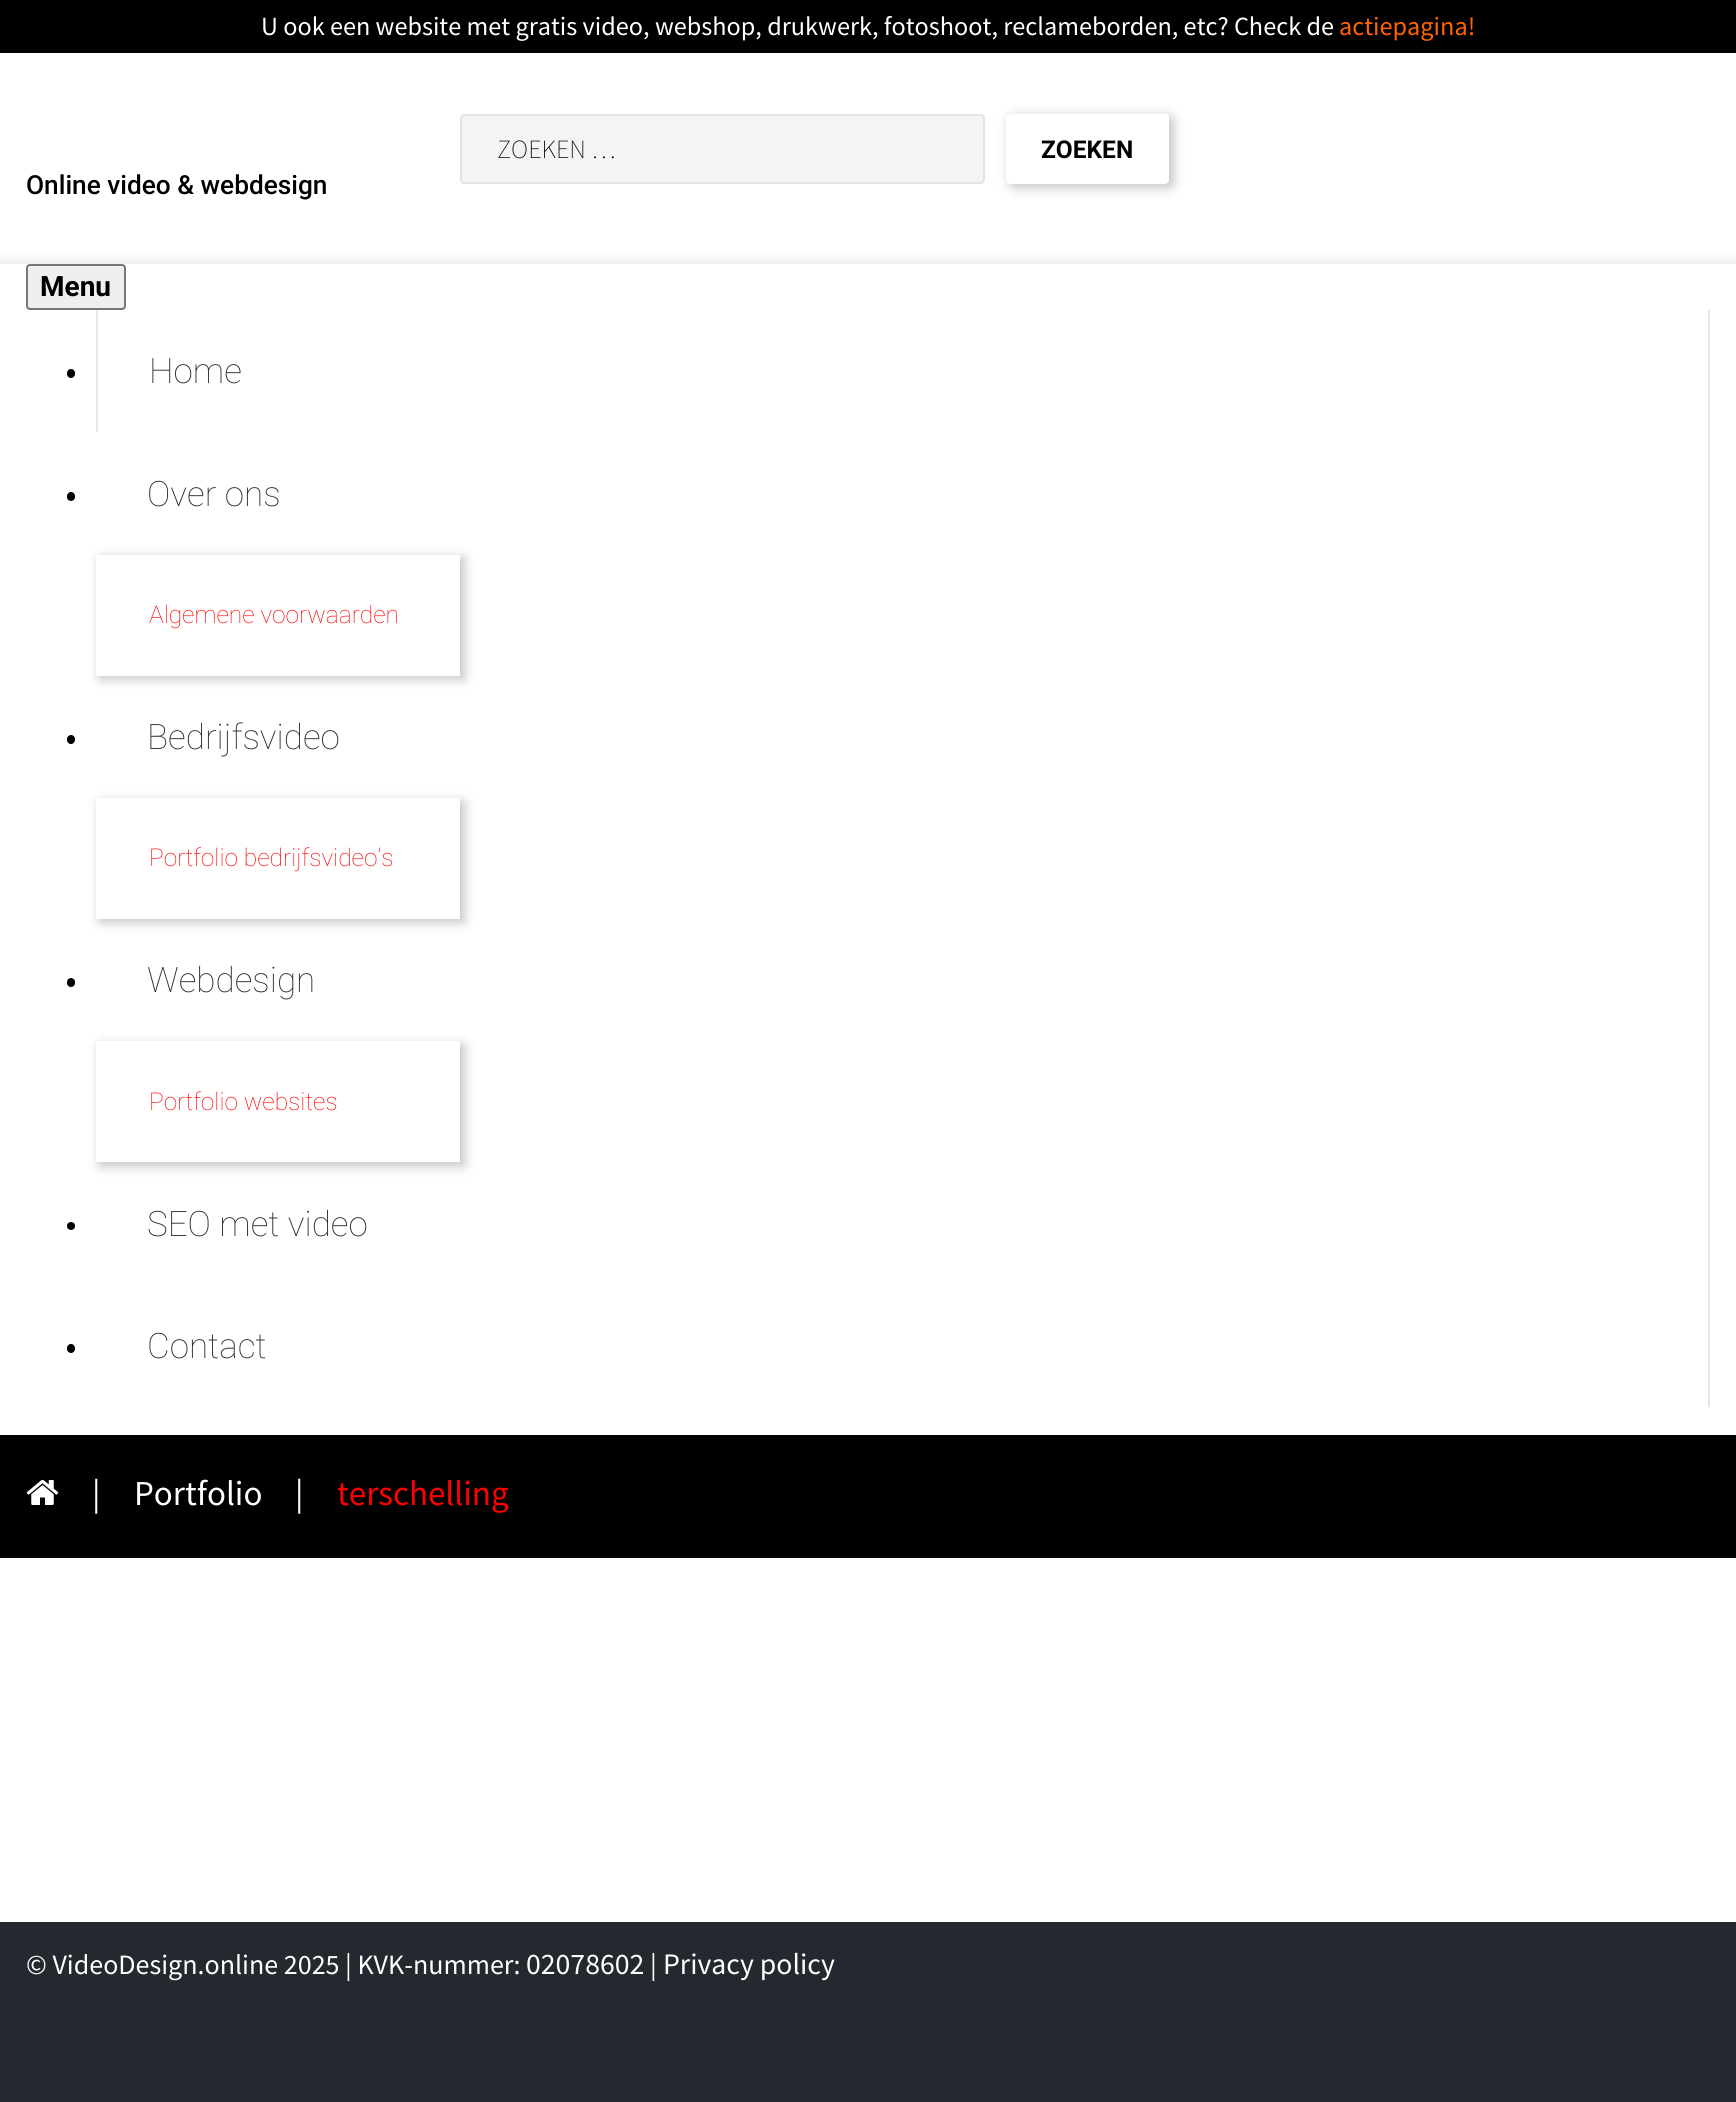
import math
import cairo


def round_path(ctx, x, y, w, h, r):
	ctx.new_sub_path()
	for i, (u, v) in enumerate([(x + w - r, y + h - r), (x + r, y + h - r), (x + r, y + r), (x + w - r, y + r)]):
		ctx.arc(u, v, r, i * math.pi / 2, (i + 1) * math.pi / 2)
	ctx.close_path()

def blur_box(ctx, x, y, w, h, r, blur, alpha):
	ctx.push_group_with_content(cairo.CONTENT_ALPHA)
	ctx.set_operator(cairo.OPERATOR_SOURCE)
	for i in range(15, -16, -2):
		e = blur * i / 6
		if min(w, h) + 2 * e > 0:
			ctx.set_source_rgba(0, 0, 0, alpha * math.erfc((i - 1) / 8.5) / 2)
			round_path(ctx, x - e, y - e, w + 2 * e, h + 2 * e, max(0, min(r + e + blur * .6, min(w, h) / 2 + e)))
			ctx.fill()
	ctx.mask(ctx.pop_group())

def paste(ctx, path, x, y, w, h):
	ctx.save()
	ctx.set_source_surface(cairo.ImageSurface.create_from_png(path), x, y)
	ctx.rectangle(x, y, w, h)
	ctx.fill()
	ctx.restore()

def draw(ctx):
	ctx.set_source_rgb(0.141, 0.161, 0.184)
	ctx.paint()
	ctx.set_source_rgb(1, 1, 1)
	ctx.rectangle(0, 53, 1736, 1382)
	ctx.fill()
	ctx.set_source_rgb(0, 0, 0)
	ctx.rectangle(0, 0, 1736, 53)
	ctx.fill()
	ctx.select_font_face('Source Sans Pro')
	ctx.set_font_size(26.25)
	ctx.set_source_rgb(1, 1, 1)
	ctx.move_to(261, 35)
	ctx.show_text('U ook een website met gratis video, webshop, drukwerk, fotoshoot, reclameborden, etc? Check de')
	ctx.set_source_rgb(1, 0.392, 0)
	ctx.move_to(1339, 35)
	ctx.show_text('actiepagina!')
	ctx.set_source_rgb(0.957, 0.957, 0.961)
	round_path(ctx, 461, 115, 523, 68, 3)
	ctx.fill_preserve()
	ctx.set_source_rgb(0.886, 0.89, 0.894)
	ctx.stroke()
	ctx.select_font_face('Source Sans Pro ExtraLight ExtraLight')
	ctx.set_source_rgb(0, 0, 0)
	ctx.move_to(497, 158)
	ctx.show_text('ZOEKEN …')
	ctx.set_source_rgb(0, 0, 0)
	blur_box(ctx, 1010, 117, 163, 70, 4, 6, 0.25)
	ctx.set_source_rgb(1, 1, 1)
	round_path(ctx, 1006, 114, 163, 70, 4)
	ctx.fill()
	ctx.select_font_face('Roboto', cairo.FONT_SLANT_NORMAL, cairo.FONT_WEIGHT_BOLD)
	ctx.set_font_size(24.5)
	ctx.set_source_rgb(0, 0, 0)
	ctx.move_to(1041, 158)
	ctx.show_text('ZOEKEN')
	ctx.select_font_face('Roboto Medium')
	ctx.set_font_size(26.25)
	ctx.move_to(26, 194)
	ctx.show_text('Online video & webdesign')
	ctx.rectangle(0, 1435, 1736, 123)
	ctx.fill()
	ctx.save()
	ctx.set_fill_rule(cairo.FILL_RULE_EVEN_ODD)
	ctx.new_path()
	ctx.move_to(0, 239)
	ctx.line_to(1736, 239)
	ctx.line_to(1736, 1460)
	ctx.line_to(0, 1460)
	ctx.close_path()
	ctx.move_to(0, 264)
	ctx.line_to(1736, 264)
	ctx.line_to(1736, 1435)
	ctx.line_to(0, 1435)
	ctx.close_path()
	ctx.clip()
	ctx.set_source_rgb(0, 0, 0)
	blur_box(ctx, 0, 264, 1736, 1171, 0, 8, 0.13)
	ctx.restore()
	ctx.set_source_rgb(0.937, 0.937, 0.937)
	round_path(ctx, 27, 265, 98, 44, 3)
	ctx.fill_preserve()
	ctx.set_source_rgb(0.463, 0.463, 0.463)
	ctx.stroke()
	ctx.select_font_face('Roboto', cairo.FONT_SLANT_NORMAL, cairo.FONT_WEIGHT_BOLD)
	ctx.set_font_size(28)
	ctx.set_source_rgb(0, 0, 0)
	ctx.move_to(40, 296)
	ctx.show_text('Menu')
	ctx.set_source_rgb(0.898, 0.902, 0.902)
	ctx.rectangle(1708, 310, 2, 1097)
	ctx.fill()
	ctx.rectangle(96, 310, 2, 122)
	ctx.fill()
	ctx.set_source_rgb(0, 0, 0)
	round_path(ctx, 67, 369, 8, 9, 4)
	ctx.fill()
	ctx.select_font_face('Roboto Thin')
	ctx.set_font_size(35)
	ctx.set_source_rgb(0.157, 0.18, 0.204)
	ctx.move_to(149, 383)
	ctx.show_text('Home')
	ctx.set_source_rgb(0, 0, 0)
	round_path(ctx, 67, 492, 8, 9, 4)
	ctx.fill()
	ctx.set_source_rgb(0.157, 0.18, 0.204)
	ctx.move_to(147, 506)
	ctx.show_text('Over ons')
	ctx.set_source_rgb(0, 0, 0)
	blur_box(ctx, 100, 558, 364, 121, 0, 6, 0.24)
	ctx.set_source_rgb(1, 1, 1)
	ctx.rectangle(96, 555, 364, 121)
	ctx.fill()
	ctx.set_font_size(24.5)
	ctx.set_source_rgb(1, 0, 0)
	ctx.move_to(149, 623)
	ctx.show_text('Algemene voorwaarden')
	ctx.set_source_rgb(0, 0, 0)
	round_path(ctx, 67, 735, 8, 9, 4)
	ctx.fill()
	ctx.set_font_size(35)
	ctx.set_source_rgb(0.157, 0.18, 0.204)
	ctx.move_to(147, 749)
	ctx.show_text('Bedrijfsvideo')
	ctx.set_source_rgb(0, 0, 0)
	blur_box(ctx, 100, 802, 364, 120, 0, 6, 0.24)
	ctx.set_source_rgb(1, 1, 1)
	ctx.rectangle(96, 798, 364, 121)
	ctx.fill()
	ctx.set_font_size(24.5)
	ctx.set_source_rgb(1, 0, 0)
	ctx.move_to(149, 866)
	ctx.show_text('Portfolio bedrijfsvideo’s')
	ctx.set_source_rgb(0, 0, 0)
	round_path(ctx, 67, 978, 8, 9, 4)
	ctx.fill()
	ctx.set_font_size(35)
	ctx.set_source_rgb(0.157, 0.18, 0.204)
	ctx.move_to(147, 992)
	ctx.show_text('Webdesign')
	ctx.set_source_rgb(0, 0, 0)
	blur_box(ctx, 100, 1045, 364, 121, 0, 6, 0.24)
	ctx.set_source_rgb(1, 1, 1)
	ctx.rectangle(96, 1041, 364, 121)
	ctx.fill()
	ctx.set_font_size(24.5)
	ctx.set_source_rgb(1, 0, 0)
	ctx.move_to(149, 1110)
	ctx.show_text('Portfolio websites')
	ctx.set_source_rgb(0, 0, 0)
	ctx.new_path()
	ctx.arc(71, 1226, 4, 0, 2 * math.pi)
	ctx.fill()
	ctx.set_font_size(35)
	ctx.set_source_rgb(0.157, 0.18, 0.204)
	ctx.move_to(147, 1236)
	ctx.show_text('SEO met video')
	ctx.set_source_rgb(0, 0, 0)
	round_path(ctx, 67, 1344, 8, 9, 4)
	ctx.fill()
	ctx.set_source_rgb(0.157, 0.18, 0.204)
	ctx.move_to(147, 1358)
	ctx.show_text('Contact')
	paste(ctx, 'media/1.png', 26, 1479, 33, 26)
	ctx.select_font_face('Source Sans Pro')
	ctx.set_source_rgb(1, 1, 1)
	for x, y, s in [
		(92, 1505, '|'),
		(134, 1505, 'Portfolio'),
		(295, 1505, '|'),
	]:
		ctx.move_to(x, y)
		ctx.show_text(s)
	ctx.set_source_rgb(1, 0, 0)
	ctx.move_to(337, 1505)
	ctx.show_text('terschelling')
	ctx.set_source_rgb(1, 1, 1)
	ctx.rectangle(0, 1558, 1736, 364)
	ctx.fill()
	ctx.set_font_size(28)
	ctx.move_to(26, 1974)
	ctx.show_text('© VideoDesign.online 2025 | KVK-nummer:')
	ctx.set_font_size(29.75)
	ctx.move_to(526, 1974)
	ctx.show_text('02078602')
	ctx.set_font_size(28)
	ctx.move_to(650, 1974)
	ctx.show_text('|')
	ctx.set_font_size(29.75)
	ctx.move_to(663, 1974)
	ctx.show_text('Privacy policy')


surface = cairo.ImageSurface(cairo.FORMAT_RGB24, 1736, 2102)
ctx = cairo.Context(surface)
options = cairo.FontOptions()
options.set_hint_metrics(cairo.HINT_METRICS_OFF)
options.set_hint_style(cairo.HINT_STYLE_NONE)
ctx.set_font_options(options)
ctx.set_miter_limit(4)
draw(ctx)
surface.write_to_png('image.png')
